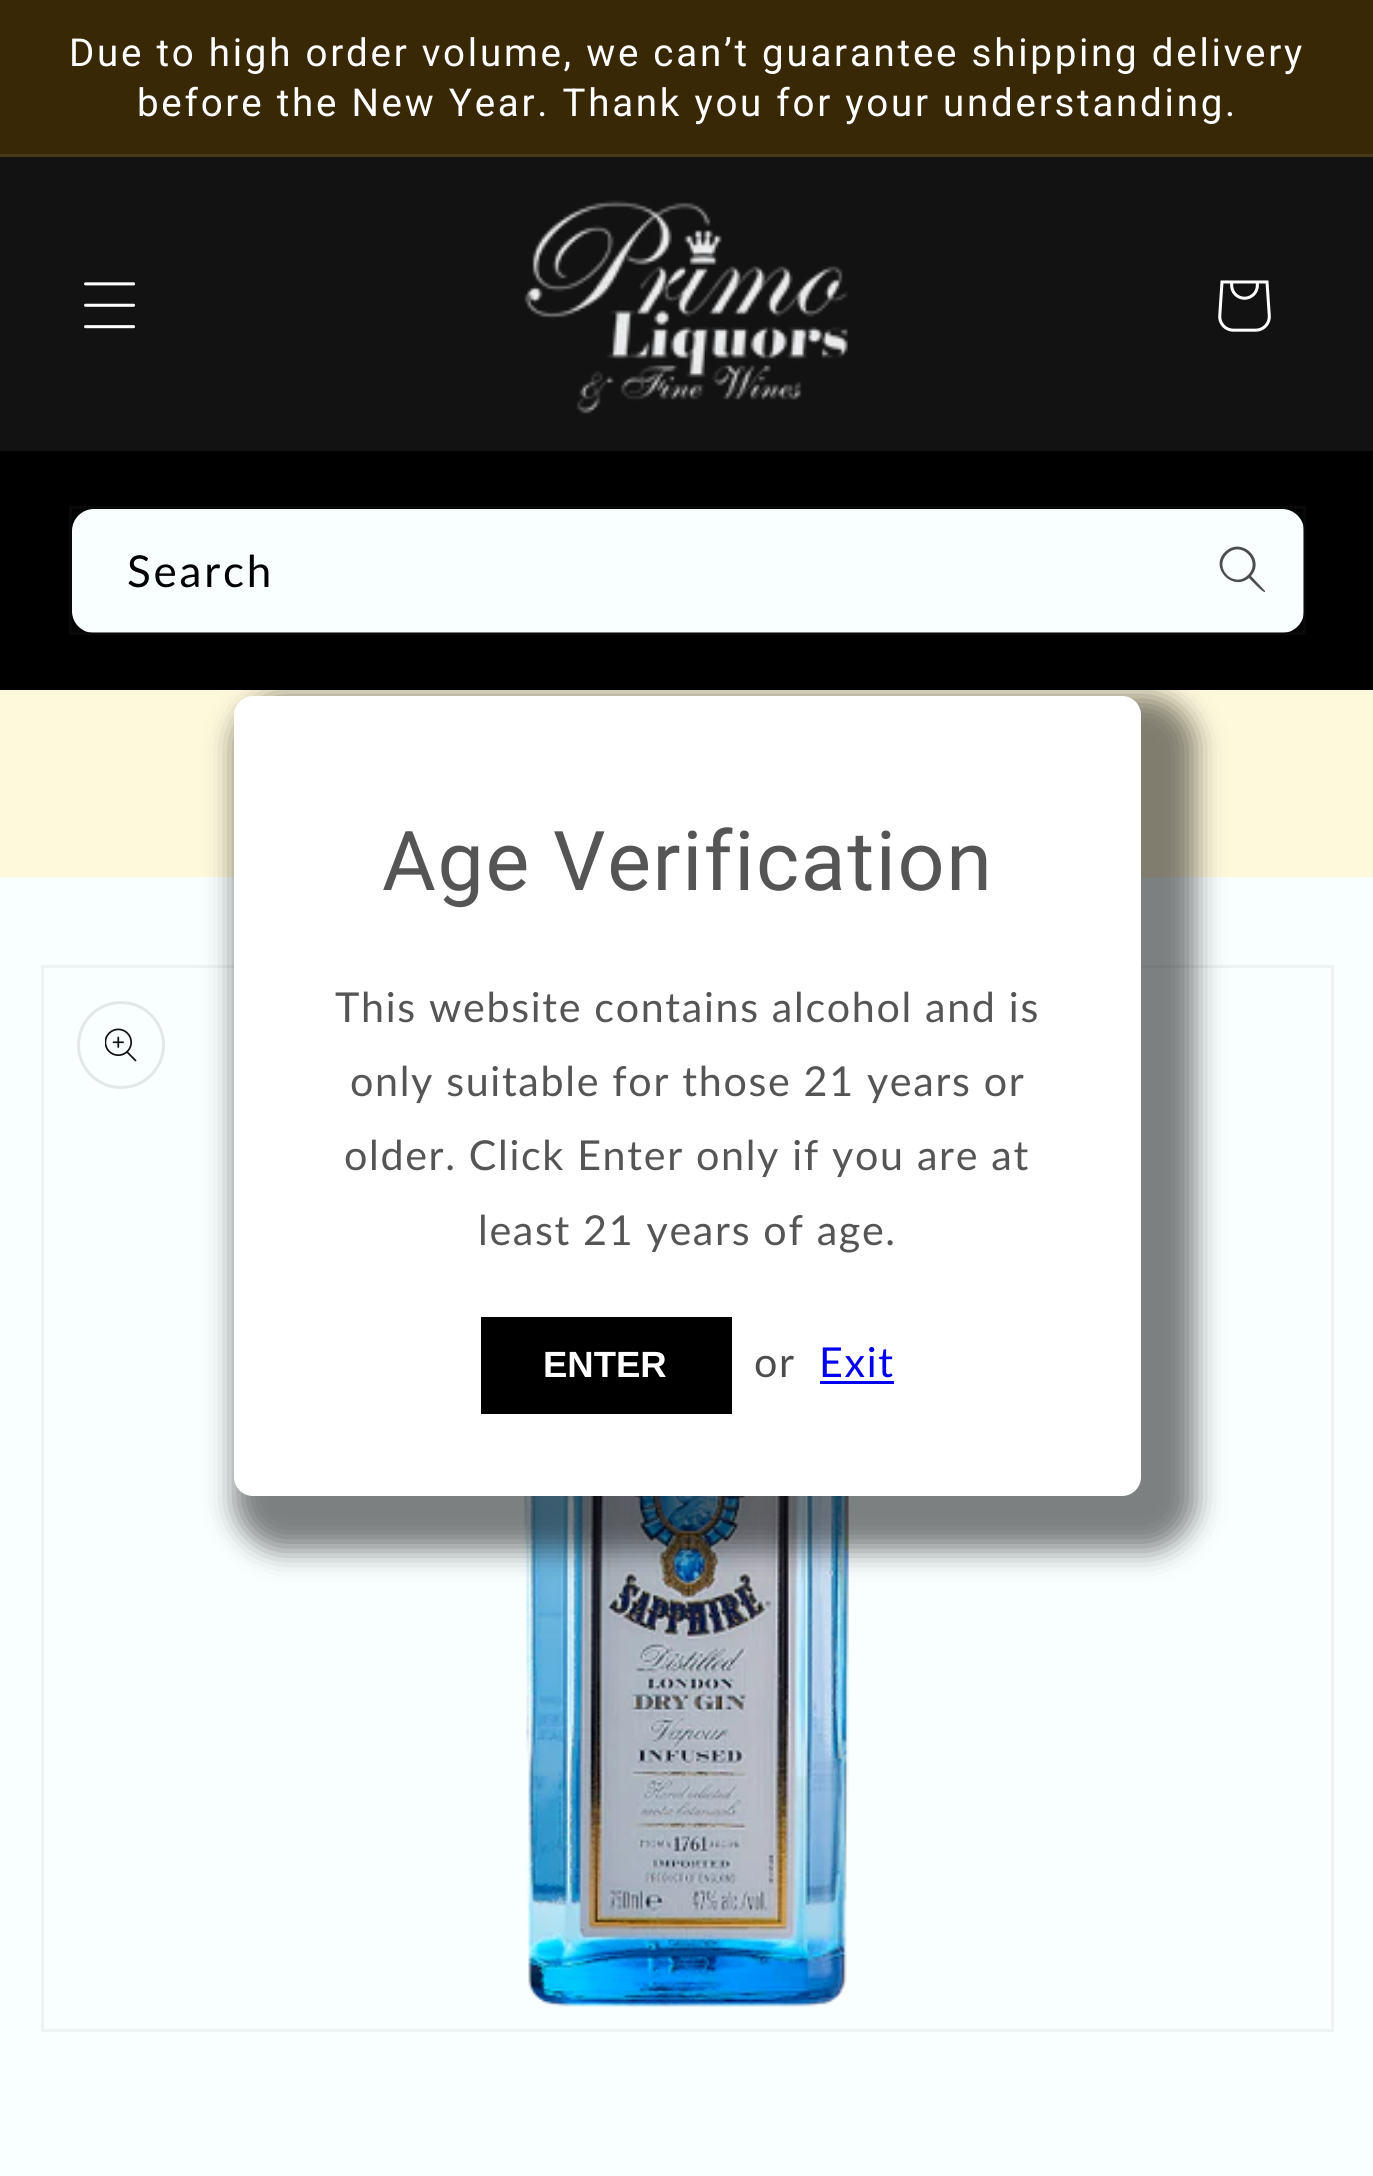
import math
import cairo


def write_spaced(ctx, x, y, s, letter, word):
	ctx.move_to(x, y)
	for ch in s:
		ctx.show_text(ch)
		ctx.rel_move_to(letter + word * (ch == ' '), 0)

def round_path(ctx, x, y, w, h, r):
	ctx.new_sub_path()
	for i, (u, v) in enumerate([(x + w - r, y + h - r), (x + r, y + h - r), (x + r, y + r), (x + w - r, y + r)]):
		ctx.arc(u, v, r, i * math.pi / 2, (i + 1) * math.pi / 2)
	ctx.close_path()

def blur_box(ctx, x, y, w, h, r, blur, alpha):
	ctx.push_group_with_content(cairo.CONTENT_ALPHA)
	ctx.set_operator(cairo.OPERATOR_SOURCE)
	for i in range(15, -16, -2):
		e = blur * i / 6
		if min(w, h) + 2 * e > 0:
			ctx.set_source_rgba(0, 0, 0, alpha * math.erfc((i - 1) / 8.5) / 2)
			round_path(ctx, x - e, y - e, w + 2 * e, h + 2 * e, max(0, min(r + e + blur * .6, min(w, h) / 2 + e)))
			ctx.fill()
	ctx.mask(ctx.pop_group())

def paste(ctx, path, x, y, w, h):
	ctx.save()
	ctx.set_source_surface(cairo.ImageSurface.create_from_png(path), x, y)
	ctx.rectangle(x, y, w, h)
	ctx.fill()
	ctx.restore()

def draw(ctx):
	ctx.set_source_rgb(0.976, 1, 1)
	ctx.paint()
	ctx.set_source_rgb(0.224, 0.157, 0.024)
	ctx.rectangle(0, 0, 1373, 154)
	ctx.fill()
	ctx.set_source_rgb(0.286, 0.224, 0.102)
	ctx.rectangle(0, 154, 1373, 3)
	ctx.fill()
	ctx.select_font_face('Roboto')
	ctx.set_font_size(38.5)
	ctx.set_source_rgb(1, 1, 1)
	write_spaced(ctx, 69, 66, 'Due to high order volume, we can’t guarantee shipping delivery', 2.75, 0)
	write_spaced(ctx, 137, 116, 'before the New Year. Thank you for your understanding.', 2.75, 0)
	ctx.set_source_rgb(0.071, 0.071, 0.071)
	ctx.rectangle(0, 157, 1373, 294)
	ctx.fill()
	paste(ctx, 'media/1.png', 84, 282, 52, 47)
	paste(ctx, 'media/2.png', 524, 200, 324, 214)
	paste(ctx, 'media/3.png', 1218, 280, 53, 52)
	ctx.set_source_rgb(0, 0, 0)
	ctx.rectangle(0, 451, 1373, 239)
	ctx.fill()
	ctx.set_source_rgb(0.976, 1, 1)
	round_path(ctx, 72, 509, 1232, 124, 22)
	ctx.fill()
	ctx.set_source_rgb(0.298, 0.302, 0.302)
	ctx.set_fill_rule(cairo.FILL_RULE_EVEN_ODD)
	ctx.new_path()
	ctx.move_to(1248, 575)
	ctx.curve_to(1234, 589, 1213, 568, 1227, 554)
	ctx.curve_to(1241, 540, 1262, 561, 1248, 575)
	ctx.close_path()
	ctx.move_to(1249, 578)
	ctx.curve_to(1232, 592, 1209, 567, 1225, 552)
	ctx.curve_to(1241, 536, 1266, 559, 1251, 576)
	ctx.line_to(1265, 591)
	ctx.line_to(1265, 592)
	ctx.curve_to(1263, 593, 1251, 580, 1249, 578)
	ctx.close_path()
	ctx.fill()
	ctx.rectangle(70.5, 507.5, 1234, 126)
	ctx.set_source_rgba(0.071, 0.071, 0.071, 0.55)
	ctx.set_line_width(3)
	ctx.stroke()
	ctx.select_font_face('Lato')
	ctx.set_font_size(44)
	ctx.set_source_rgb(0, 0, 0)
	write_spaced(ctx, 127, 587, 'Search', 2.75, 0)
	ctx.set_source_rgb(1, 0.973, 0.863)
	ctx.rectangle(0, 690, 1373, 187)
	ctx.fill()
	ctx.rectangle(42.5, 966.5, 1290, 1064)
	ctx.set_source_rgb(0.929, 0.953, 0.953)
	ctx.stroke()
	paste(ctx, 'media/5.png', 524, 1496, 325, 511)
	ctx.set_source_rgb(0, 0, 0)
	blur_box(ctx, 234, 696, 962, 855, 47, 14, 0.5)
	ctx.set_source_rgb(1, 1, 1)
	round_path(ctx, 234, 696, 907, 800, 19)
	ctx.fill()
	ctx.select_font_face('Roboto')
	ctx.set_font_size(82.5)
	ctx.set_source_rgb(0.333, 0.333, 0.333)
	write_spaced(ctx, 382, 890, 'Age Verification', 1.65, 0)
	ctx.select_font_face('Lato')
	ctx.set_font_size(41.25)
	for x, y, s in [
		(335, 1022, 'This website contains alcohol and is'),
		(350, 1096, 'only suitable for those 21 years or'),
		(344, 1170, 'older. Click Enter only if you are at'),
		(478, 1245, 'least 21 years of age.'),
	]:
		write_spaced(ctx, x, y, s, 1.65, 0)
	ctx.set_source_rgb(0, 0, 0)
	ctx.rectangle(481, 1317, 251, 97)
	ctx.fill()
	ctx.select_font_face('Liberation Sans', cairo.FONT_SLANT_NORMAL, cairo.FONT_WEIGHT_BOLD)
	ctx.set_font_size(36.5)
	ctx.set_source_rgb(1, 1, 1)
	ctx.move_to(543, 1377)
	ctx.show_text('ENTER')
	ctx.select_font_face('Lato')
	ctx.set_font_size(41.25)
	ctx.set_source_rgb(0.302, 0.302, 0.302)
	write_spaced(ctx, 754, 1377, 'or', 1.65, 0)
	ctx.set_source_rgb(0, 0, 0.933)
	write_spaced(ctx, 819, 1377, 'Exit', 1.65, 0)
	ctx.rectangle(820, 1381, 74, 3)
	ctx.fill()
	ctx.arc(121, 1045, 42.5, 0, 2 * math.pi)
	ctx.set_source_rgb(0.886, 0.906, 0.906)
	ctx.stroke()
	paste(ctx, 'media/4.png', 105, 1028, 32, 34)


surface = cairo.ImageSurface(cairo.FORMAT_RGB24, 1373, 2176)
ctx = cairo.Context(surface)
options = cairo.FontOptions()
options.set_hint_metrics(cairo.HINT_METRICS_OFF)
options.set_hint_style(cairo.HINT_STYLE_NONE)
ctx.set_font_options(options)
ctx.set_miter_limit(4)
draw(ctx)
surface.write_to_png('image.png')
